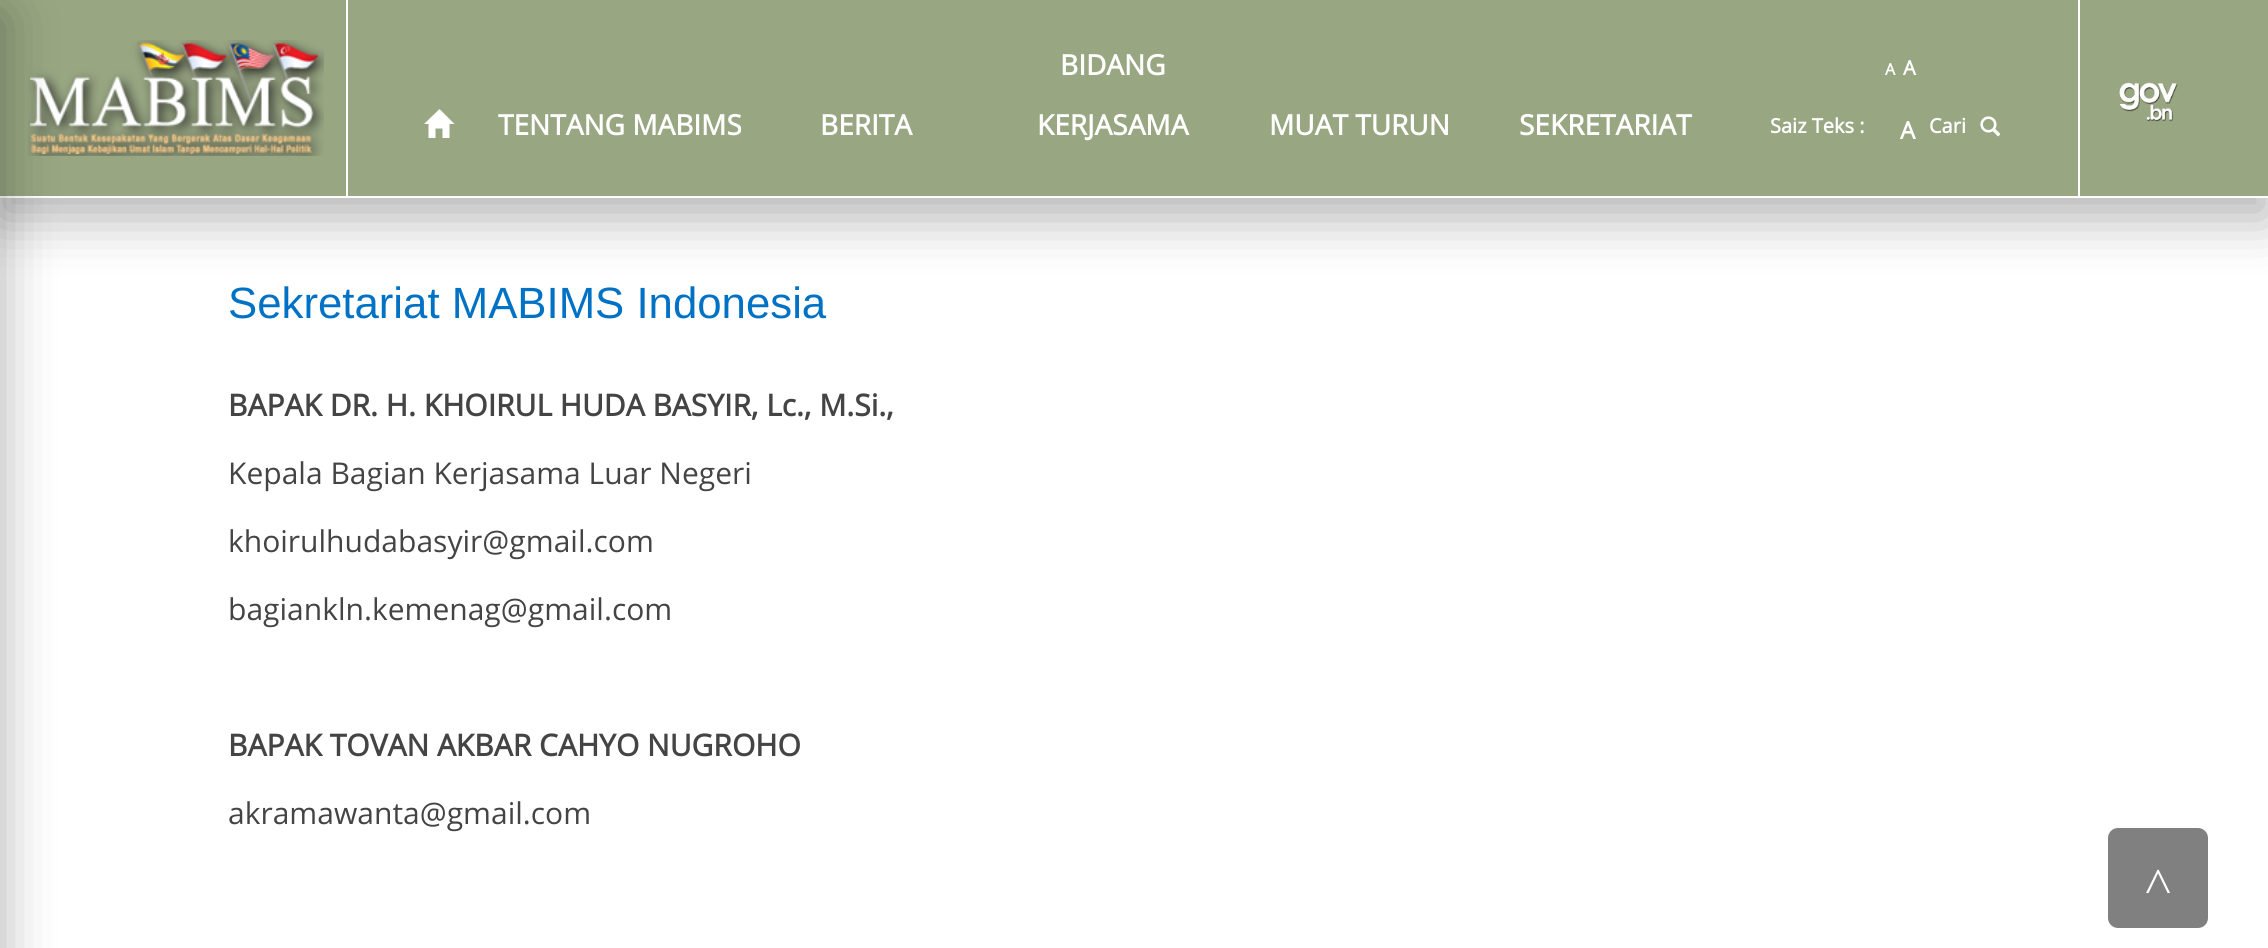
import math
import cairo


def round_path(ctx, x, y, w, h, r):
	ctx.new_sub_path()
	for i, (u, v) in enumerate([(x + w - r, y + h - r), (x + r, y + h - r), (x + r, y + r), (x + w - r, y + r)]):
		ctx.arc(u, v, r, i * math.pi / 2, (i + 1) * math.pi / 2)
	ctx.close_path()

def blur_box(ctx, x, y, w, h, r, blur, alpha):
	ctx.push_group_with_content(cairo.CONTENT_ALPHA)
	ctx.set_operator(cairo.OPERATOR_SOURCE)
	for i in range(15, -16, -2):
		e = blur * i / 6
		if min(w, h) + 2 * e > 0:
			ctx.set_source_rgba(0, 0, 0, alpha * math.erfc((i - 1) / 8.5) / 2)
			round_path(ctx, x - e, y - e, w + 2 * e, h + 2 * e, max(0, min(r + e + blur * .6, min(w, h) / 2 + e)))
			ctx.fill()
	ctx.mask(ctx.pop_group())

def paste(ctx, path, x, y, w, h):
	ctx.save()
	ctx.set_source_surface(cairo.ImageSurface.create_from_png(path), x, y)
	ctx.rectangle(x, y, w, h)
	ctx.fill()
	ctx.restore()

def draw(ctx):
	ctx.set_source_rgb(1, 1, 1)
	ctx.paint()
	ctx.set_source_rgb(0, 0, 0)
	blur_box(ctx, -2, 16, 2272, 202, 0, 27, 0.3)
	ctx.set_source_rgb(0.596, 0.651, 0.51)
	ctx.rectangle(0, 0, 2268, 196)
	ctx.fill()
	ctx.set_source_rgb(1, 1, 1)
	ctx.rectangle(0, 196, 2268, 2)
	ctx.fill()
	paste(ctx, 'media/2.png', 28, 40, 296, 116)
	ctx.set_source_rgb(0, 0, 0)
	blur_box(ctx, -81, 16, 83, 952, 0, 27, 0.3)
	paste(ctx, 'media/1.png', 2119, 82, 59, 40)
	ctx.set_source_rgb(1, 1, 1)
	ctx.rectangle(346, 0, 2, 196)
	ctx.fill()
	ctx.rectangle(2078, 0, 2, 196)
	ctx.fill()
	ctx.new_path()
	ctx.move_to(424, 124)
	ctx.line_to(439.5, 109)
	ctx.line_to(454.5, 124)
	ctx.line_to(449.5, 124)
	ctx.line_to(449.5, 138)
	ctx.line_to(442.5, 138)
	ctx.line_to(442.5, 128.5)
	ctx.line_to(435.5, 128.5)
	ctx.line_to(435.5, 138)
	ctx.line_to(428.5, 138)
	ctx.line_to(428.5, 124)
	ctx.close_path()
	ctx.fill()
	ctx.select_font_face('Open Sans', cairo.FONT_SLANT_NORMAL, cairo.FONT_WEIGHT_BOLD)
	ctx.set_font_size(28)
	for x, y, s in [
		(498, 135, 'TENTANG MABIMS'),
		(820, 135, 'BERITA'),
		(1060, 75, 'BIDANG'),
		(1037, 135, 'KERJASAMA'),
		(1269, 135, 'MUAT TURUN'),
		(1519, 135, 'SEKRETARIAT'),
	]:
		ctx.move_to(x, y)
		ctx.show_text(s)
	ctx.set_font_size(20)
	ctx.move_to(1770, 133)
	ctx.show_text('Saiz Teks :')
	ctx.set_font_size(16)
	ctx.move_to(1885, 75)
	ctx.show_text('A')
	ctx.set_font_size(20)
	ctx.move_to(1903, 75)
	ctx.show_text('A')
	ctx.set_font_size(24)
	ctx.move_to(1900, 139)
	ctx.show_text('A')
	ctx.set_font_size(20)
	ctx.move_to(1929, 133)
	ctx.show_text('Cari')
	paste(ctx, 'media/3.png', 1980, 116, 20, 21)
	ctx.select_font_face('Liberation Sans')
	ctx.set_font_size(43.75)
	ctx.set_source_rgb(0, 0.447, 0.776)
	ctx.move_to(228, 318)
	ctx.show_text('Sekretariat MABIMS Indonesia')
	ctx.select_font_face('Open Sans', cairo.FONT_SLANT_NORMAL, cairo.FONT_WEIGHT_BOLD)
	ctx.set_font_size(30)
	ctx.set_source_rgb(0.267, 0.267, 0.267)
	ctx.move_to(228, 416)
	ctx.show_text('BAPAK DR. H. KHOIRUL HUDA BASYIR, Lc., M.Si.,')
	ctx.select_font_face('Open Sans')
	for x, y, s in [
		(228, 484, 'Kepala Bagian Kerjasama Luar Negeri'),
		(228, 552, 'khoirulhudabasyir@gmail.com'),
		(228, 620, 'bagiankln.kemenag@gmail.com'),
	]:
		ctx.move_to(x, y)
		ctx.show_text(s)
	ctx.select_font_face('Open Sans', cairo.FONT_SLANT_NORMAL, cairo.FONT_WEIGHT_BOLD)
	ctx.move_to(228, 756)
	ctx.show_text('BAPAK TOVAN AKBAR CAHYO NUGROHO')
	ctx.select_font_face('Open Sans')
	ctx.move_to(228, 824)
	ctx.show_text('akramawanta@gmail.com')
	ctx.set_source_rgb(0.502, 0.502, 0.502)
	round_path(ctx, 2108, 828, 100, 100, 10)
	ctx.fill()
	ctx.select_font_face('Liberation Serif')
	ctx.set_font_size(50)
	ctx.set_source_rgb(1, 1, 1)
	ctx.move_to(2144, 898)
	ctx.show_text('˄')


surface = cairo.ImageSurface(cairo.FORMAT_RGB24, 2268, 948)
ctx = cairo.Context(surface)
options = cairo.FontOptions()
options.set_hint_metrics(cairo.HINT_METRICS_OFF)
options.set_hint_style(cairo.HINT_STYLE_NONE)
ctx.set_font_options(options)
ctx.set_miter_limit(4)
draw(ctx)
surface.write_to_png('image.png')
